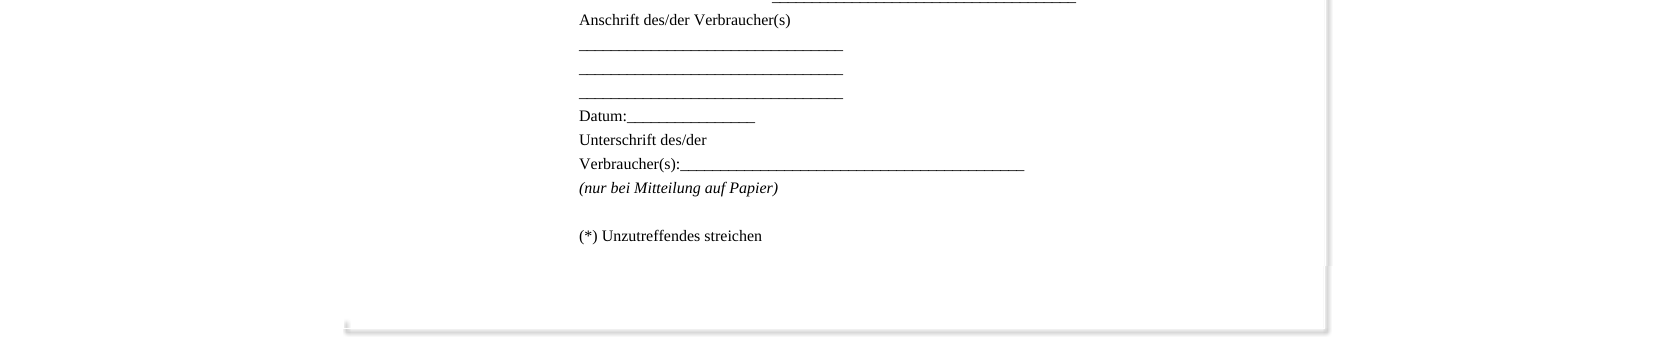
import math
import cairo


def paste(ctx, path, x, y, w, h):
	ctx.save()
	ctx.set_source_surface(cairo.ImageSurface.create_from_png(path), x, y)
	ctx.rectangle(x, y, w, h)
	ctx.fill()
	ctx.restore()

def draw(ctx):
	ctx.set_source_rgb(1, 1, 1)
	ctx.paint()
	ctx.select_font_face('Liberation Serif')
	ctx.set_font_size(16)
	ctx.set_source_rgb(0, 0, 0)
	for x, y, s in [
		(772, 1, '______________________________________'),
		(579, 25, 'Anschrift des/der Verbraucher(s)'),
		(579, 49, '_________________________________'),
		(579, 73, '_________________________________'),
		(579, 97, '_________________________________'),
		(579, 121, 'Datum:________________'),
		(579, 145, 'Unterschrift des/der'),
		(579, 169, 'Verbraucher(s):___________________________________________'),
	]:
		ctx.move_to(x, y)
		ctx.show_text(s)
	ctx.select_font_face('Liberation Serif', cairo.FONT_SLANT_ITALIC)
	ctx.move_to(579, 193)
	ctx.show_text('(nur bei Mitteilung auf Papier)')
	ctx.select_font_face('Liberation Serif')
	ctx.move_to(579, 241)
	ctx.show_text('(*) Unzutreffendes streichen')
	paste(ctx, 'media/1.png', 1324, 0, 9, 248)
	paste(ctx, 'media/2.png', 1324, 248, 9, 18)
	paste(ctx, 'media/3.png', 1323, 266, 9, 52)
	paste(ctx, 'media/4.png', 343, 318, 989, 19)


surface = cairo.ImageSurface(cairo.FORMAT_RGB24, 1680, 337)
ctx = cairo.Context(surface)
options = cairo.FontOptions()
options.set_hint_metrics(cairo.HINT_METRICS_OFF)
options.set_hint_style(cairo.HINT_STYLE_NONE)
ctx.set_font_options(options)
ctx.set_miter_limit(4)
draw(ctx)
surface.write_to_png('image.png')
